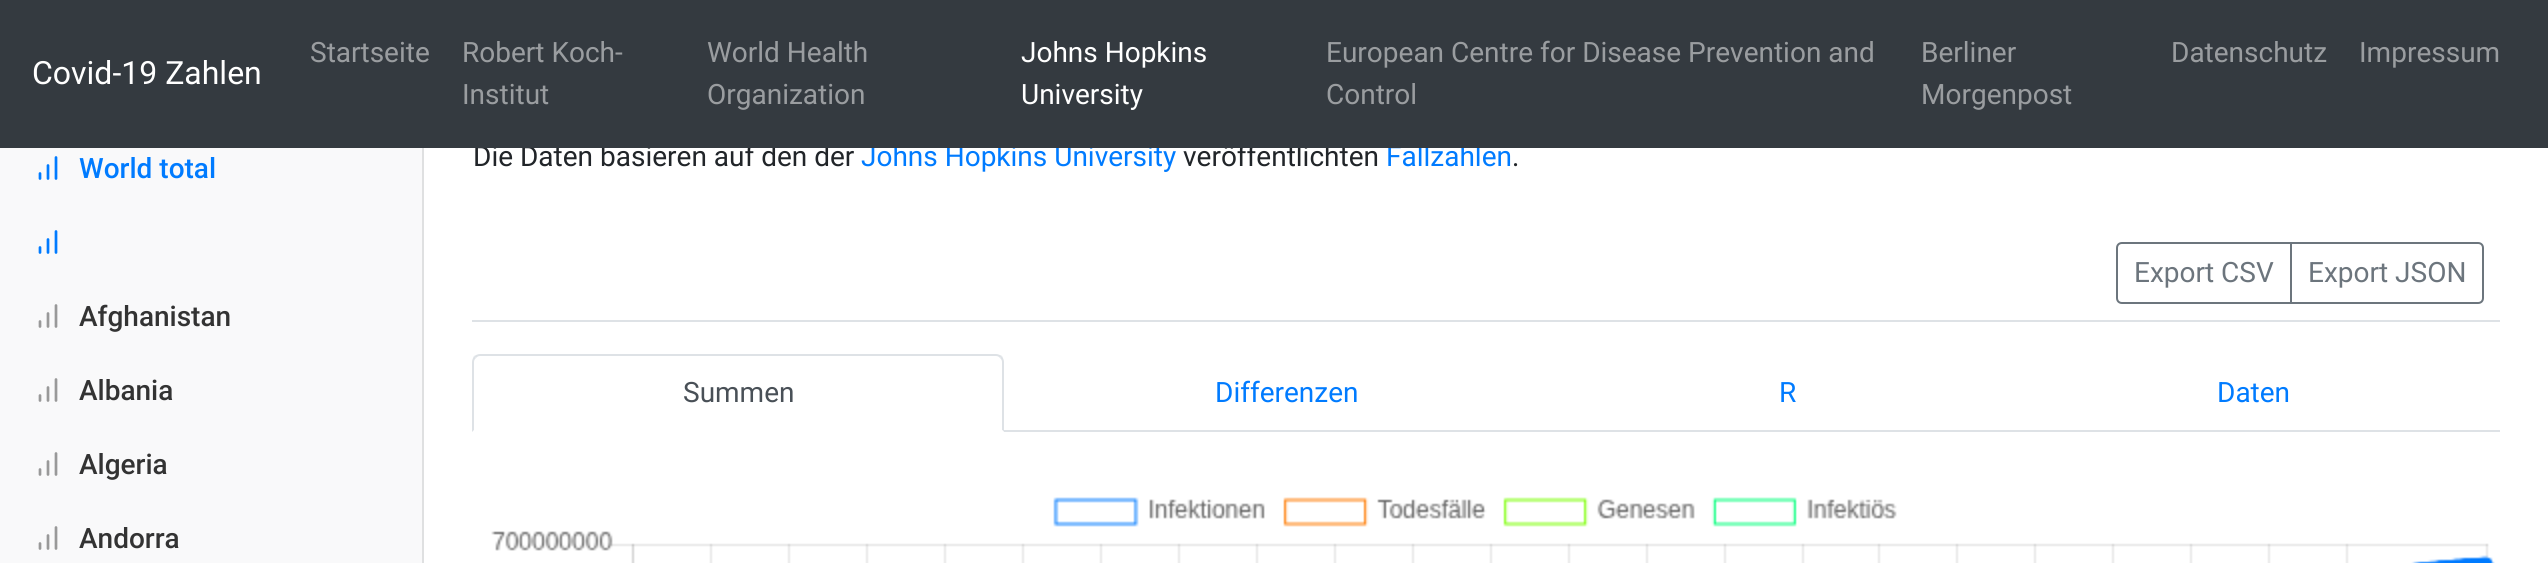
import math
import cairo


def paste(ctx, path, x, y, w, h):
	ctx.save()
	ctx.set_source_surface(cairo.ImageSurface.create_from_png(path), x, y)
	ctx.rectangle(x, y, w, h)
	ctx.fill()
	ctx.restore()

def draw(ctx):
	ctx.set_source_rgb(1, 1, 1)
	ctx.paint()
	ctx.select_font_face('Roboto')
	ctx.set_font_size(28)
	ctx.set_source_rgb(0.129, 0.145, 0.161)
	ctx.move_to(473, 166)
	ctx.show_text('Die Daten basieren auf den der')
	ctx.set_source_rgb(0, 0.482, 1)
	ctx.move_to(861, 166)
	ctx.show_text('Johns Hopkins University')
	ctx.set_source_rgb(0.129, 0.145, 0.161)
	ctx.move_to(1183, 166)
	ctx.show_text('veröffentlichten')
	ctx.set_source_rgb(0, 0.482, 1)
	ctx.move_to(1386, 166)
	ctx.show_text('Fallzahlen')
	ctx.set_source_rgb(0.204, 0.227, 0.251)
	ctx.rectangle(0, 0, 2548, 148)
	ctx.fill()
	ctx.set_font_size(32)
	ctx.set_source_rgb(1, 1, 1)
	ctx.move_to(32, 84)
	ctx.show_text('Covid-19 Zahlen')
	ctx.set_font_size(28)
	ctx.set_source_rgb(0.604, 0.616, 0.627)
	for x, y, s in [
		(310, 62, 'Startseite'),
		(462, 62, 'Robert Koch-'),
		(462, 104, 'Institut'),
		(707, 62, 'World Health'),
		(707, 104, 'Organization'),
	]:
		ctx.move_to(x, y)
		ctx.show_text(s)
	ctx.set_source_rgb(1, 1, 1)
	ctx.move_to(1021, 62)
	ctx.show_text('Johns Hopkins')
	ctx.move_to(1021, 104)
	ctx.show_text('University')
	ctx.set_source_rgb(0.604, 0.616, 0.627)
	for x, y, s in [
		(1326, 62, 'European Centre for Disease Prevention and'),
		(1326, 104, 'Control'),
		(1921, 62, 'Berliner'),
		(1921, 104, 'Morgenpost'),
		(2171, 62, 'Datenschutz'),
		(2359, 62, 'Impressum'),
	]:
		ctx.move_to(x, y)
		ctx.show_text(s)
	ctx.set_source_rgb(0.973, 0.976, 0.98)
	ctx.rectangle(0, 148, 422, 415)
	ctx.fill()
	ctx.set_source_rgb(0.875, 0.878, 0.882)
	ctx.rectangle(422, 148, 2, 415)
	ctx.fill()
	ctx.new_path()
	ctx.move_to(48, 178.5)
	ctx.line_to(48, 165.5)
	ctx.move_to(56, 178.5)
	ctx.line_to(56, 157.5)
	ctx.move_to(40, 178.5)
	ctx.line_to(40, 173.5)
	ctx.set_source_rgb(0, 0.482, 1)
	ctx.set_line_width(2.7)
	ctx.set_line_cap(cairo.LINE_CAP_ROUND)
	ctx.set_line_join(cairo.LINE_JOIN_ROUND)
	ctx.stroke()
	ctx.select_font_face('Roboto Medium')
	ctx.move_to(79, 178)
	ctx.show_text('World total')
	ctx.new_path()
	ctx.move_to(48, 252.5)
	ctx.line_to(48, 239.5)
	ctx.move_to(56, 252.5)
	ctx.line_to(56, 231.5)
	ctx.move_to(40, 252.5)
	ctx.line_to(40, 247.5)
	ctx.stroke()
	ctx.new_path()
	ctx.move_to(48, 326.5)
	ctx.line_to(48, 313.5)
	ctx.move_to(56, 326.5)
	ctx.line_to(56, 305.5)
	ctx.move_to(40, 326.5)
	ctx.line_to(40, 321.5)
	ctx.set_source_rgb(0.6, 0.6, 0.6)
	ctx.stroke()
	ctx.set_source_rgb(0.2, 0.2, 0.2)
	ctx.move_to(79, 326)
	ctx.show_text('Afghanistan')
	ctx.new_path()
	ctx.move_to(48, 400.5)
	ctx.line_to(48, 387.5)
	ctx.move_to(56, 400.5)
	ctx.line_to(56, 379.5)
	ctx.move_to(40, 400.5)
	ctx.line_to(40, 395.5)
	ctx.set_source_rgb(0.6, 0.6, 0.6)
	ctx.stroke()
	ctx.set_source_rgb(0.2, 0.2, 0.2)
	ctx.move_to(79, 400)
	ctx.show_text('Albania')
	ctx.new_path()
	ctx.move_to(48, 474.5)
	ctx.line_to(48, 461.5)
	ctx.move_to(56, 474.5)
	ctx.line_to(56, 453.5)
	ctx.move_to(40, 474.5)
	ctx.line_to(40, 469.5)
	ctx.set_source_rgb(0.6, 0.6, 0.6)
	ctx.stroke()
	ctx.set_source_rgb(0.2, 0.2, 0.2)
	ctx.move_to(79, 474)
	ctx.show_text('Algeria')
	ctx.new_path()
	ctx.move_to(48, 548.5)
	ctx.line_to(48, 535.5)
	ctx.move_to(56, 548.5)
	ctx.line_to(56, 527.5)
	ctx.move_to(40, 548.5)
	ctx.line_to(40, 543.5)
	ctx.set_source_rgb(0.6, 0.6, 0.6)
	ctx.stroke()
	ctx.set_source_rgb(0.2, 0.2, 0.2)
	ctx.move_to(79, 548)
	ctx.show_text('Andorra')
	ctx.select_font_face('Roboto')
	ctx.set_source_rgb(0.129, 0.145, 0.161)
	ctx.move_to(1512, 166)
	ctx.show_text('.')
	ctx.set_source_rgb(0.871, 0.886, 0.902)
	ctx.rectangle(472, 320, 2028, 2)
	ctx.fill()
	ctx.new_path()
	ctx.move_to(2122, 243)
	ctx.line_to(2291, 243)
	ctx.line_to(2291, 303)
	ctx.line_to(2122, 303)
	ctx.curve_to(2119, 303, 2117, 301, 2117, 298)
	ctx.line_to(2117, 248)
	ctx.curve_to(2117, 245, 2119, 243, 2122, 243)
	ctx.close_path()
	ctx.set_source_rgb(0.424, 0.459, 0.49)
	ctx.set_line_width(2)
	ctx.set_line_cap(cairo.LINE_CAP_BUTT)
	ctx.set_line_join(cairo.LINE_JOIN_MITER)
	ctx.stroke()
	ctx.move_to(2134, 282)
	ctx.show_text('Export CSV')
	ctx.new_path()
	ctx.move_to(2291, 243)
	ctx.line_to(2478, 243)
	ctx.curve_to(2481, 243, 2483, 245, 2483, 248)
	ctx.line_to(2483, 298)
	ctx.curve_to(2483, 301, 2481, 303, 2478, 303)
	ctx.line_to(2291, 303)
	ctx.close_path()
	ctx.stroke()
	ctx.move_to(2308, 282)
	ctx.show_text('Export JSON')
	ctx.set_source_rgb(0.871, 0.886, 0.902)
	ctx.rectangle(1004, 430, 1496, 2)
	ctx.fill()
	ctx.new_path()
	ctx.move_to(480, 354)
	ctx.curve_to(478, 354, 476, 355, 474, 356)
	ctx.line_to(476, 358)
	ctx.curve_to(477, 357, 478, 356, 480, 356)
	ctx.line_to(996, 356)
	ctx.curve_to(998, 356, 999, 357, 1000, 358)
	ctx.line_to(1002, 356)
	ctx.curve_to(1000, 355, 998, 354, 996, 354)
	ctx.close_path()
	ctx.fill()
	ctx.new_path()
	ctx.move_to(1004, 432)
	ctx.line_to(1004, 362)
	ctx.curve_to(1004, 360, 1003, 358, 1002, 356)
	ctx.line_to(1000, 358)
	ctx.curve_to(1001, 359, 1002, 360, 1002, 362)
	ctx.line_to(1002, 430)
	ctx.close_path()
	ctx.fill()
	ctx.set_source_rgb(1, 1, 1)
	ctx.new_path()
	ctx.move_to(1004, 432)
	ctx.line_to(1002, 430)
	ctx.line_to(474, 430)
	ctx.line_to(472, 432)
	ctx.close_path()
	ctx.fill()
	ctx.set_source_rgb(0.871, 0.886, 0.902)
	ctx.new_path()
	ctx.move_to(472, 432)
	ctx.line_to(474, 430)
	ctx.line_to(474, 362)
	ctx.curve_to(474, 360, 475, 359, 476, 358)
	ctx.line_to(474, 356)
	ctx.curve_to(473, 358, 472, 360, 472, 362)
	ctx.close_path()
	ctx.fill()
	ctx.set_source_rgb(0.286, 0.314, 0.341)
	ctx.move_to(683, 402)
	ctx.show_text('Summen')
	ctx.set_source_rgb(0, 0.482, 1)
	for x, y, s in [
		(1215, 402, 'Differenzen'),
		(1779, 402, 'R'),
		(2217, 402, 'Daten'),
	]:
		ctx.move_to(x, y)
		ctx.show_text(s)
	paste(ctx, 'media/1.png', 491, 497, 2004, 66)


surface = cairo.ImageSurface(cairo.FORMAT_RGB24, 2548, 563)
ctx = cairo.Context(surface)
options = cairo.FontOptions()
options.set_hint_metrics(cairo.HINT_METRICS_OFF)
options.set_hint_style(cairo.HINT_STYLE_NONE)
ctx.set_font_options(options)
ctx.set_miter_limit(4)
draw(ctx)
surface.write_to_png('image.png')
